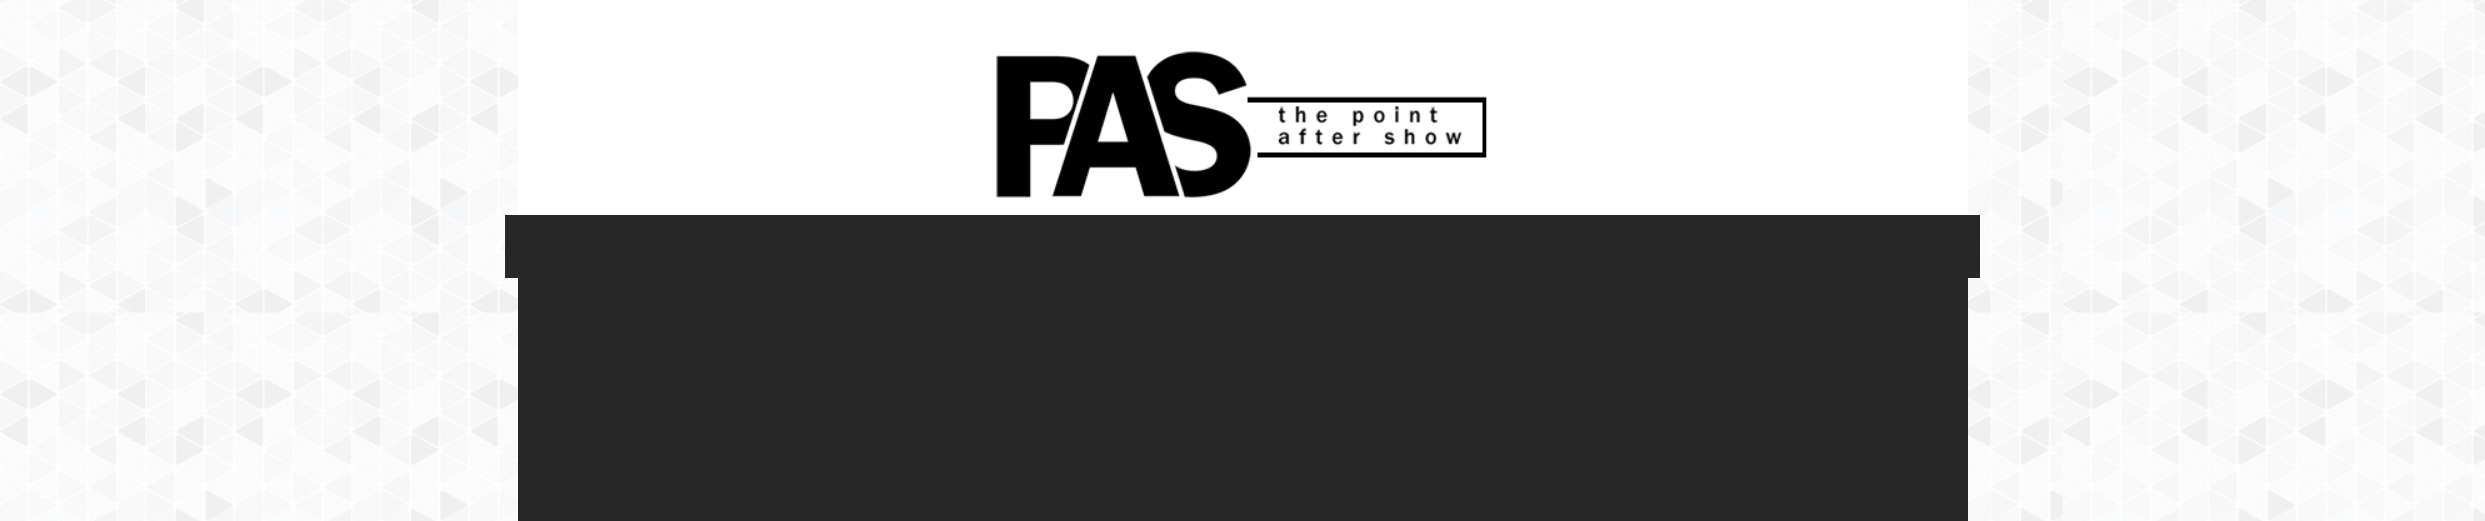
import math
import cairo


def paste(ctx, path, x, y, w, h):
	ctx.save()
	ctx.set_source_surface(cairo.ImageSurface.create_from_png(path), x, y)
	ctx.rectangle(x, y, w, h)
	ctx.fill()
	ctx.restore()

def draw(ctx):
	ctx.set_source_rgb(1, 1, 1)
	ctx.paint()
	paste(ctx, 'media/1.png', 0, 0, 2485, 521)
	ctx.set_source_rgb(1, 1, 1)
	ctx.rectangle(518, 0, 1450, 215)
	ctx.fill()
	paste(ctx, 'media/2.png', 996, 51, 491, 147)
	ctx.set_source_rgb(0.153, 0.153, 0.153)
	ctx.rectangle(518, 215, 1450, 306)
	ctx.rectangle(505, 215, 13, 63)
	ctx.rectangle(1968, 215, 12, 63)
	ctx.fill()


surface = cairo.ImageSurface(cairo.FORMAT_RGB24, 2485, 521)
ctx = cairo.Context(surface)
options = cairo.FontOptions()
options.set_hint_metrics(cairo.HINT_METRICS_OFF)
options.set_hint_style(cairo.HINT_STYLE_NONE)
ctx.set_font_options(options)
ctx.set_miter_limit(4)
draw(ctx)
surface.write_to_png('image.png')
